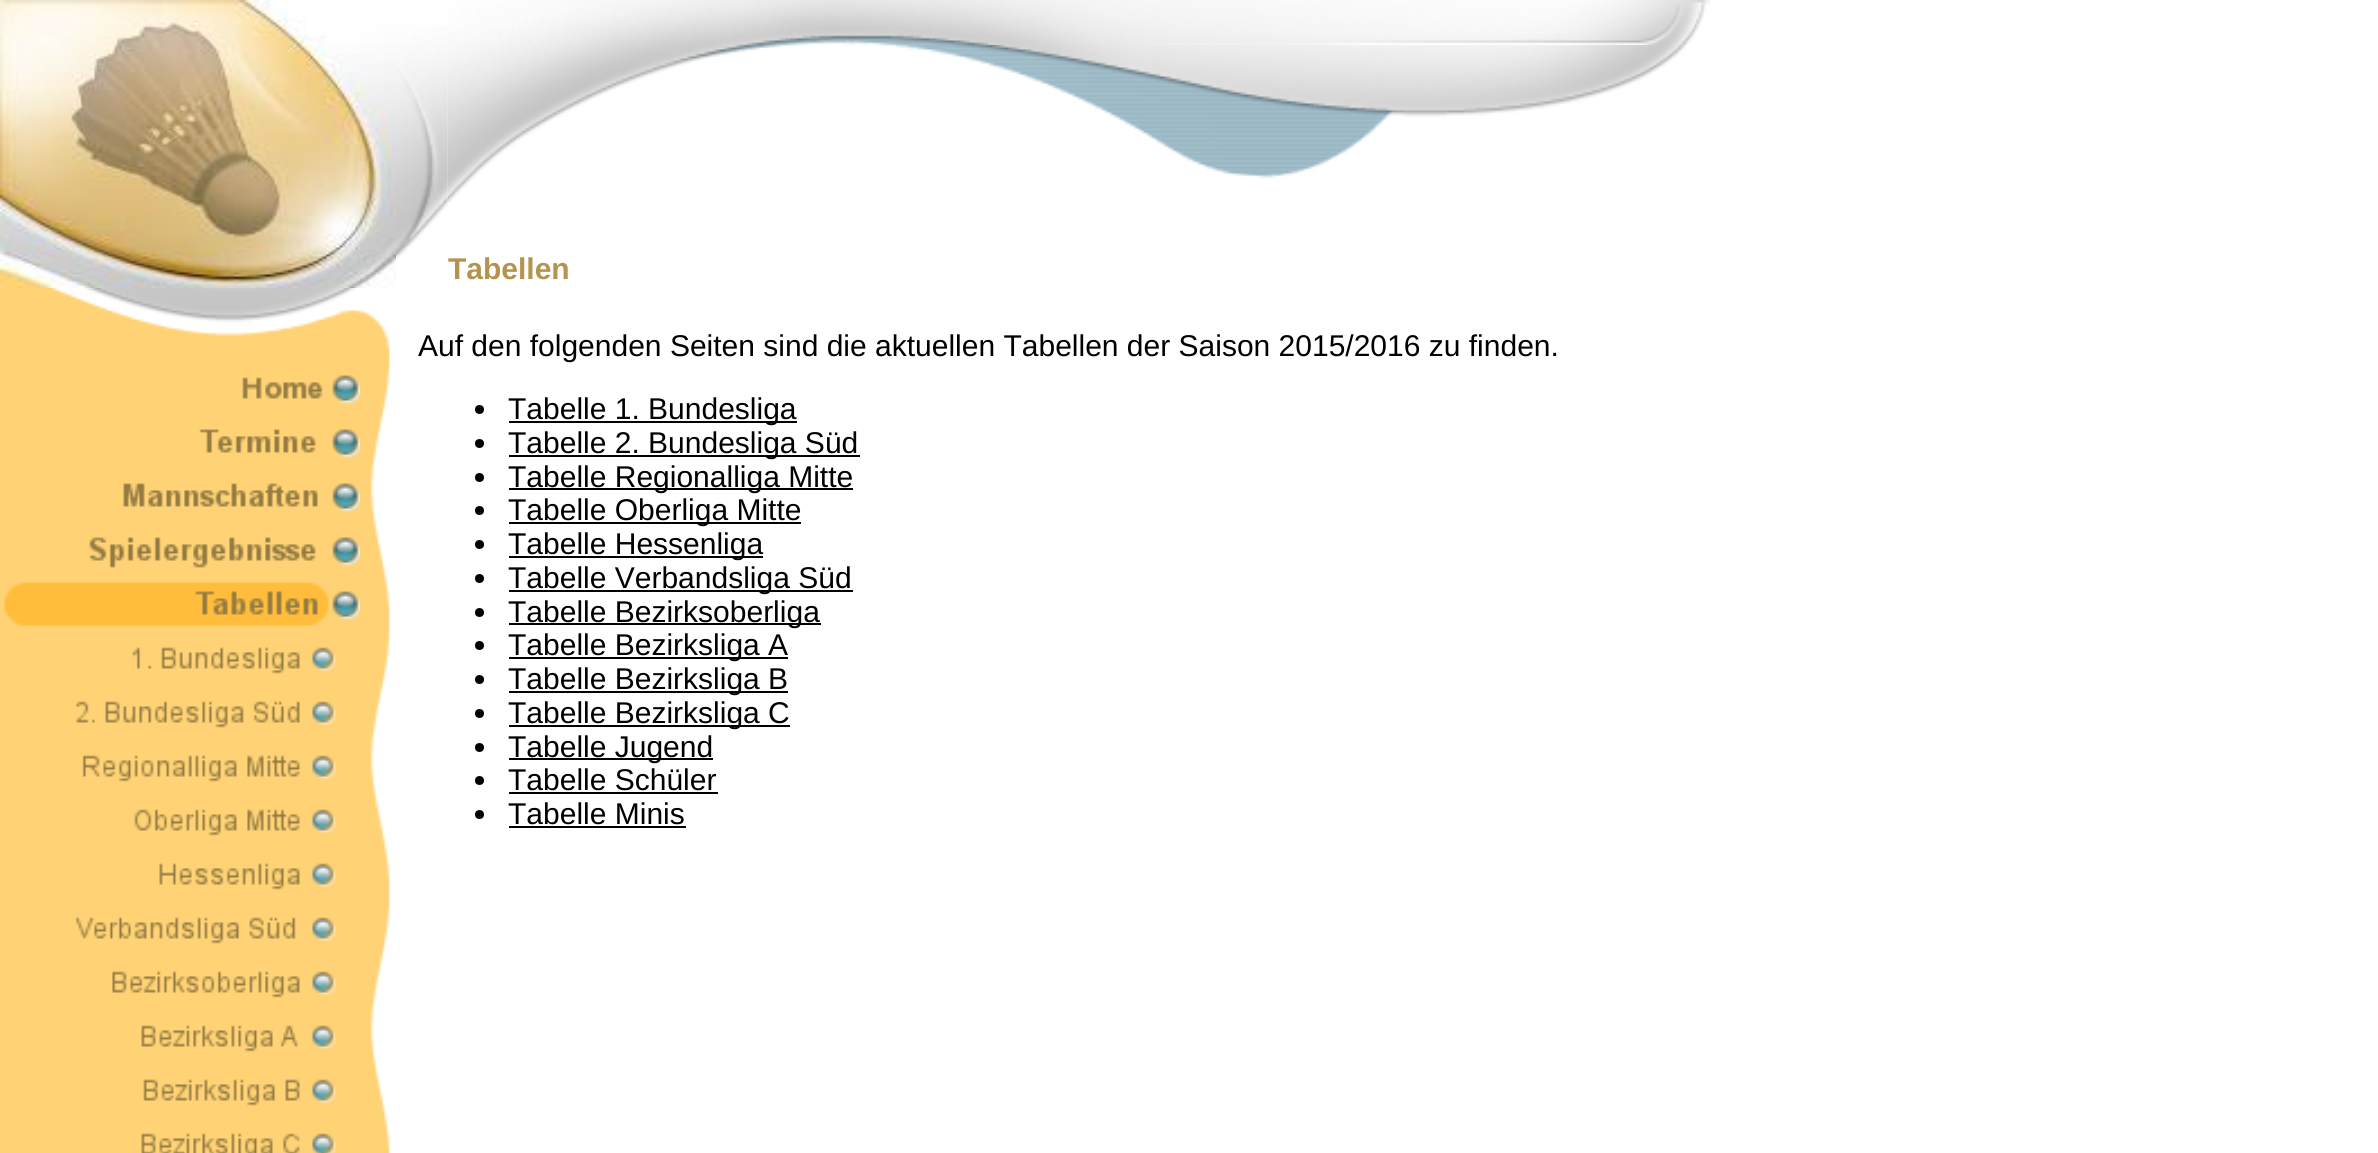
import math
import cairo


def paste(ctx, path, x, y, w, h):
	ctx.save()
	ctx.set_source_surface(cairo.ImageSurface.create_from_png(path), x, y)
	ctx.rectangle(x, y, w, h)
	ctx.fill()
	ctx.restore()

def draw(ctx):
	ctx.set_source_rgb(1, 1, 1)
	ctx.paint()
	paste(ctx, 'media/1.png', 0, 288, 390, 865)
	paste(ctx, 'media/2.png', 0, 0, 396, 288)
	paste(ctx, 'media/3.png', 396, 25, 52, 234)
	paste(ctx, 'media/4.png', 447, 0, 273, 203)
	paste(ctx, 'media/5.png', 720, 0, 270, 66)
	paste(ctx, 'media/6.png', 990, 0, 720, 45)
	paste(ctx, 'media/7.png', 990, 45, 696, 134)
	ctx.select_font_face('Liberation Sans', cairo.FONT_SLANT_NORMAL, cairo.FONT_WEIGHT_BOLD)
	ctx.set_font_size(30)
	ctx.set_source_rgb(0.706, 0.58, 0.302)
	ctx.move_to(448, 279)
	ctx.show_text('Tabellen')
	paste(ctx, 'media/8.png', 51, 288, 339, 72)
	paste(ctx, 'media/9.png', 242, 375, 118, 29)
	paste(ctx, 'media/10.png', 199, 429, 161, 29)
	paste(ctx, 'media/11.png', 123, 483, 237, 29)
	paste(ctx, 'media/12.png', 89, 537, 271, 31)
	paste(ctx, 'media/13.png', 4, 582, 356, 44)
	paste(ctx, 'media/14.png', 132, 647, 204, 27)
	paste(ctx, 'media/15.png', 76, 701, 260, 27)
	paste(ctx, 'media/16.png', 82, 755, 254, 27)
	paste(ctx, 'media/17.png', 134, 809, 202, 27)
	paste(ctx, 'media/18.png', 159, 863, 177, 27)
	paste(ctx, 'media/19.png', 74, 917, 262, 27)
	paste(ctx, 'media/20.png', 112, 971, 224, 27)
	paste(ctx, 'media/21.png', 141, 1025, 195, 27)
	paste(ctx, 'media/22.png', 143, 1079, 193, 27)
	paste(ctx, 'media/23.png', 141, 1133, 195, 20)
	ctx.select_font_face('Liberation Sans')
	ctx.set_source_rgb(0, 0, 0)
	ctx.move_to(418, 356)
	ctx.show_text('Auf den folgenden Seiten sind die aktuellen Tabellen der Saison 2015/2016 zu finden.')
	ctx.new_path()
	ctx.arc(479.5, 409.5, 4.5, 0, 2 * math.pi)
	ctx.fill()
	ctx.rectangle(509, 421, 288, 2)
	ctx.fill()
	ctx.move_to(508, 419)
	ctx.show_text('Tabelle 1. Bundesliga')
	ctx.new_path()
	ctx.arc(479.5, 443.5, 4.5, 0, 2 * math.pi)
	ctx.fill()
	ctx.rectangle(509, 455, 351, 2)
	ctx.fill()
	ctx.move_to(508, 453)
	ctx.show_text('Tabelle 2. Bundesliga Süd')
	ctx.new_path()
	ctx.arc(479.5, 477.5, 4.5, 0, 2 * math.pi)
	ctx.fill()
	ctx.rectangle(509, 488, 344, 2)
	ctx.fill()
	ctx.move_to(508, 487)
	ctx.show_text('Tabelle Regionalliga Mitte')
	ctx.new_path()
	ctx.arc(479.5, 510.5, 4.5, 0, 2 * math.pi)
	ctx.fill()
	ctx.rectangle(509, 522, 292, 2)
	ctx.fill()
	ctx.move_to(508, 520)
	ctx.show_text('Tabelle Oberliga Mitte')
	ctx.new_path()
	ctx.arc(479.5, 544.5, 4.5, 0, 2 * math.pi)
	ctx.fill()
	ctx.rectangle(509, 556, 254, 2)
	ctx.fill()
	ctx.move_to(508, 554)
	ctx.show_text('Tabelle Hessenliga')
	ctx.new_path()
	ctx.arc(479.5, 578.5, 4.5, 0, 2 * math.pi)
	ctx.fill()
	ctx.rectangle(509, 590, 344, 2)
	ctx.fill()
	ctx.move_to(508, 588)
	ctx.show_text('Tabelle Verbandsliga Süd')
	ctx.new_path()
	ctx.arc(479.5, 612.5, 4.5, 0, 2 * math.pi)
	ctx.fill()
	ctx.rectangle(509, 623, 312, 2)
	ctx.fill()
	ctx.move_to(508, 622)
	ctx.show_text('Tabelle Bezirksoberliga')
	ctx.new_path()
	ctx.arc(479.5, 645.5, 4.5, 0, 2 * math.pi)
	ctx.fill()
	ctx.rectangle(509, 657, 279, 2)
	ctx.fill()
	ctx.move_to(508, 655)
	ctx.show_text('Tabelle Bezirksliga A')
	ctx.new_path()
	ctx.arc(479.5, 679.5, 4.5, 0, 2 * math.pi)
	ctx.fill()
	ctx.rectangle(509, 691, 279, 2)
	ctx.fill()
	ctx.move_to(508, 689)
	ctx.show_text('Tabelle Bezirksliga B')
	ctx.new_path()
	ctx.arc(479.5, 713.5, 4.5, 0, 2 * math.pi)
	ctx.fill()
	ctx.rectangle(509, 725, 281, 2)
	ctx.fill()
	ctx.move_to(508, 723)
	ctx.show_text('Tabelle Bezirksliga C')
	ctx.new_path()
	ctx.arc(479.5, 747.5, 4.5, 0, 2 * math.pi)
	ctx.fill()
	ctx.rectangle(509, 758, 204, 2)
	ctx.fill()
	ctx.move_to(508, 757)
	ctx.show_text('Tabelle Jugend')
	ctx.new_path()
	ctx.arc(479.5, 780.5, 4.5, 0, 2 * math.pi)
	ctx.fill()
	ctx.move_to(508, 790)
	ctx.show_text('Tabelle Schüler')
	ctx.rectangle(509, 792, 209, 2)
	ctx.fill()
	ctx.arc(479.5, 814.5, 4.5, 0, 2 * math.pi)
	ctx.fill()
	ctx.move_to(508, 824)
	ctx.show_text('Tabelle Minis')
	ctx.rectangle(509, 826, 177, 2)
	ctx.fill()


surface = cairo.ImageSurface(cairo.FORMAT_RGB24, 2378, 1153)
ctx = cairo.Context(surface)
options = cairo.FontOptions()
options.set_hint_metrics(cairo.HINT_METRICS_OFF)
options.set_hint_style(cairo.HINT_STYLE_NONE)
ctx.set_font_options(options)
ctx.set_miter_limit(4)
draw(ctx)
surface.write_to_png('image.png')
